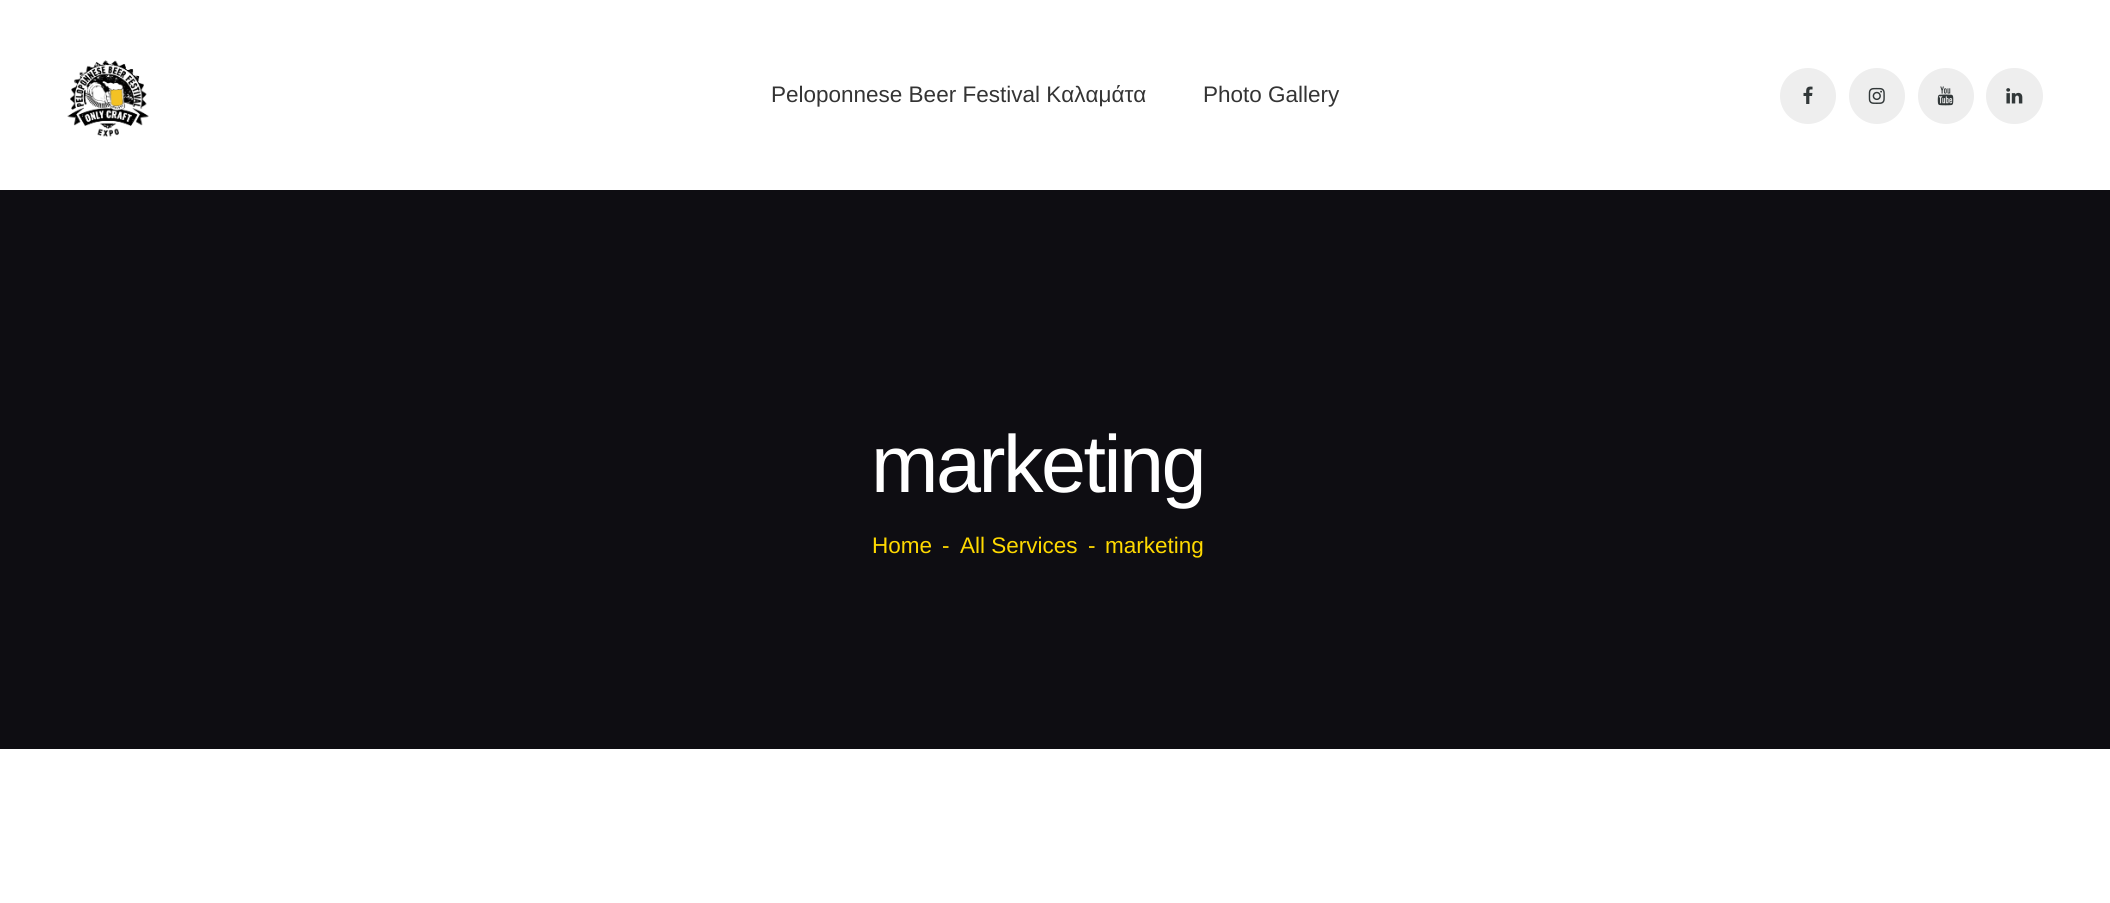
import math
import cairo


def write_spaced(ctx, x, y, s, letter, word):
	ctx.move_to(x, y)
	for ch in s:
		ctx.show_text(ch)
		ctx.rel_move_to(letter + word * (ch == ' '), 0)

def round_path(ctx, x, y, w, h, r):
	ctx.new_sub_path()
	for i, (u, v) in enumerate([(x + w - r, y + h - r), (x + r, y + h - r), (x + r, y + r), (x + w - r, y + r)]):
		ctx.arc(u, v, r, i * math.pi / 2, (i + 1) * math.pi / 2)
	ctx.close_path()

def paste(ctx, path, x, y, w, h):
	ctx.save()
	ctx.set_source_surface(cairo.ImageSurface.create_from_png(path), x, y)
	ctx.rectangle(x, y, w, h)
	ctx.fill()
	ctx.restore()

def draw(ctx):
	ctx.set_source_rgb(1, 1, 1)
	ctx.paint()
	paste(ctx, 'media/1.png', 67, 60, 82, 77)
	ctx.select_font_face('Liberation Sans')
	ctx.set_font_size(22.5)
	ctx.set_source_rgb(0.204, 0.204, 0.204)
	ctx.move_to(771, 102)
	ctx.show_text('Peloponnese Beer Festival Καλαμάτα')
	ctx.move_to(1203, 102)
	ctx.show_text('Photo Gallery')
	ctx.set_source_rgb(0.933, 0.933, 0.933)
	ctx.new_path()
	ctx.arc(1808, 96, 28, 0, 2 * math.pi)
	ctx.fill()
	paste(ctx, 'media/2.png', 1803, 86, 10, 18)
	ctx.arc(1877, 96, 28, 0, 2 * math.pi)
	ctx.fill()
	paste(ctx, 'media/3.png', 1868, 87, 17, 17)
	ctx.arc(1946, 96, 28, 0, 2 * math.pi)
	ctx.fill()
	paste(ctx, 'media/4.png', 1937, 86, 17, 20)
	round_path(ctx, 1986, 68, 57, 56, 28)
	ctx.fill()
	paste(ctx, 'media/5.png', 2006, 88, 17, 16)
	ctx.set_source_rgb(0.055, 0.051, 0.071)
	ctx.rectangle(0, 190, 2110, 559)
	ctx.fill()
	ctx.set_font_size(81)
	ctx.set_source_rgb(1, 1, 1)
	write_spaced(ctx, 871, 492, 'marketing', -2.5, 0)
	ctx.set_font_size(22.5)
	ctx.set_source_rgb(1, 0.851, 0)
	for x, y, s in [
		(872, 553, 'Home'),
		(942, 553, '-'),
		(960, 553, 'All Services'),
		(1088, 553, '-'),
		(1105, 553, 'marketing'),
	]:
		ctx.move_to(x, y)
		ctx.show_text(s)


surface = cairo.ImageSurface(cairo.FORMAT_RGB24, 2110, 903)
ctx = cairo.Context(surface)
options = cairo.FontOptions()
options.set_hint_metrics(cairo.HINT_METRICS_OFF)
options.set_hint_style(cairo.HINT_STYLE_NONE)
ctx.set_font_options(options)
ctx.set_miter_limit(4)
draw(ctx)
surface.write_to_png('image.png')
